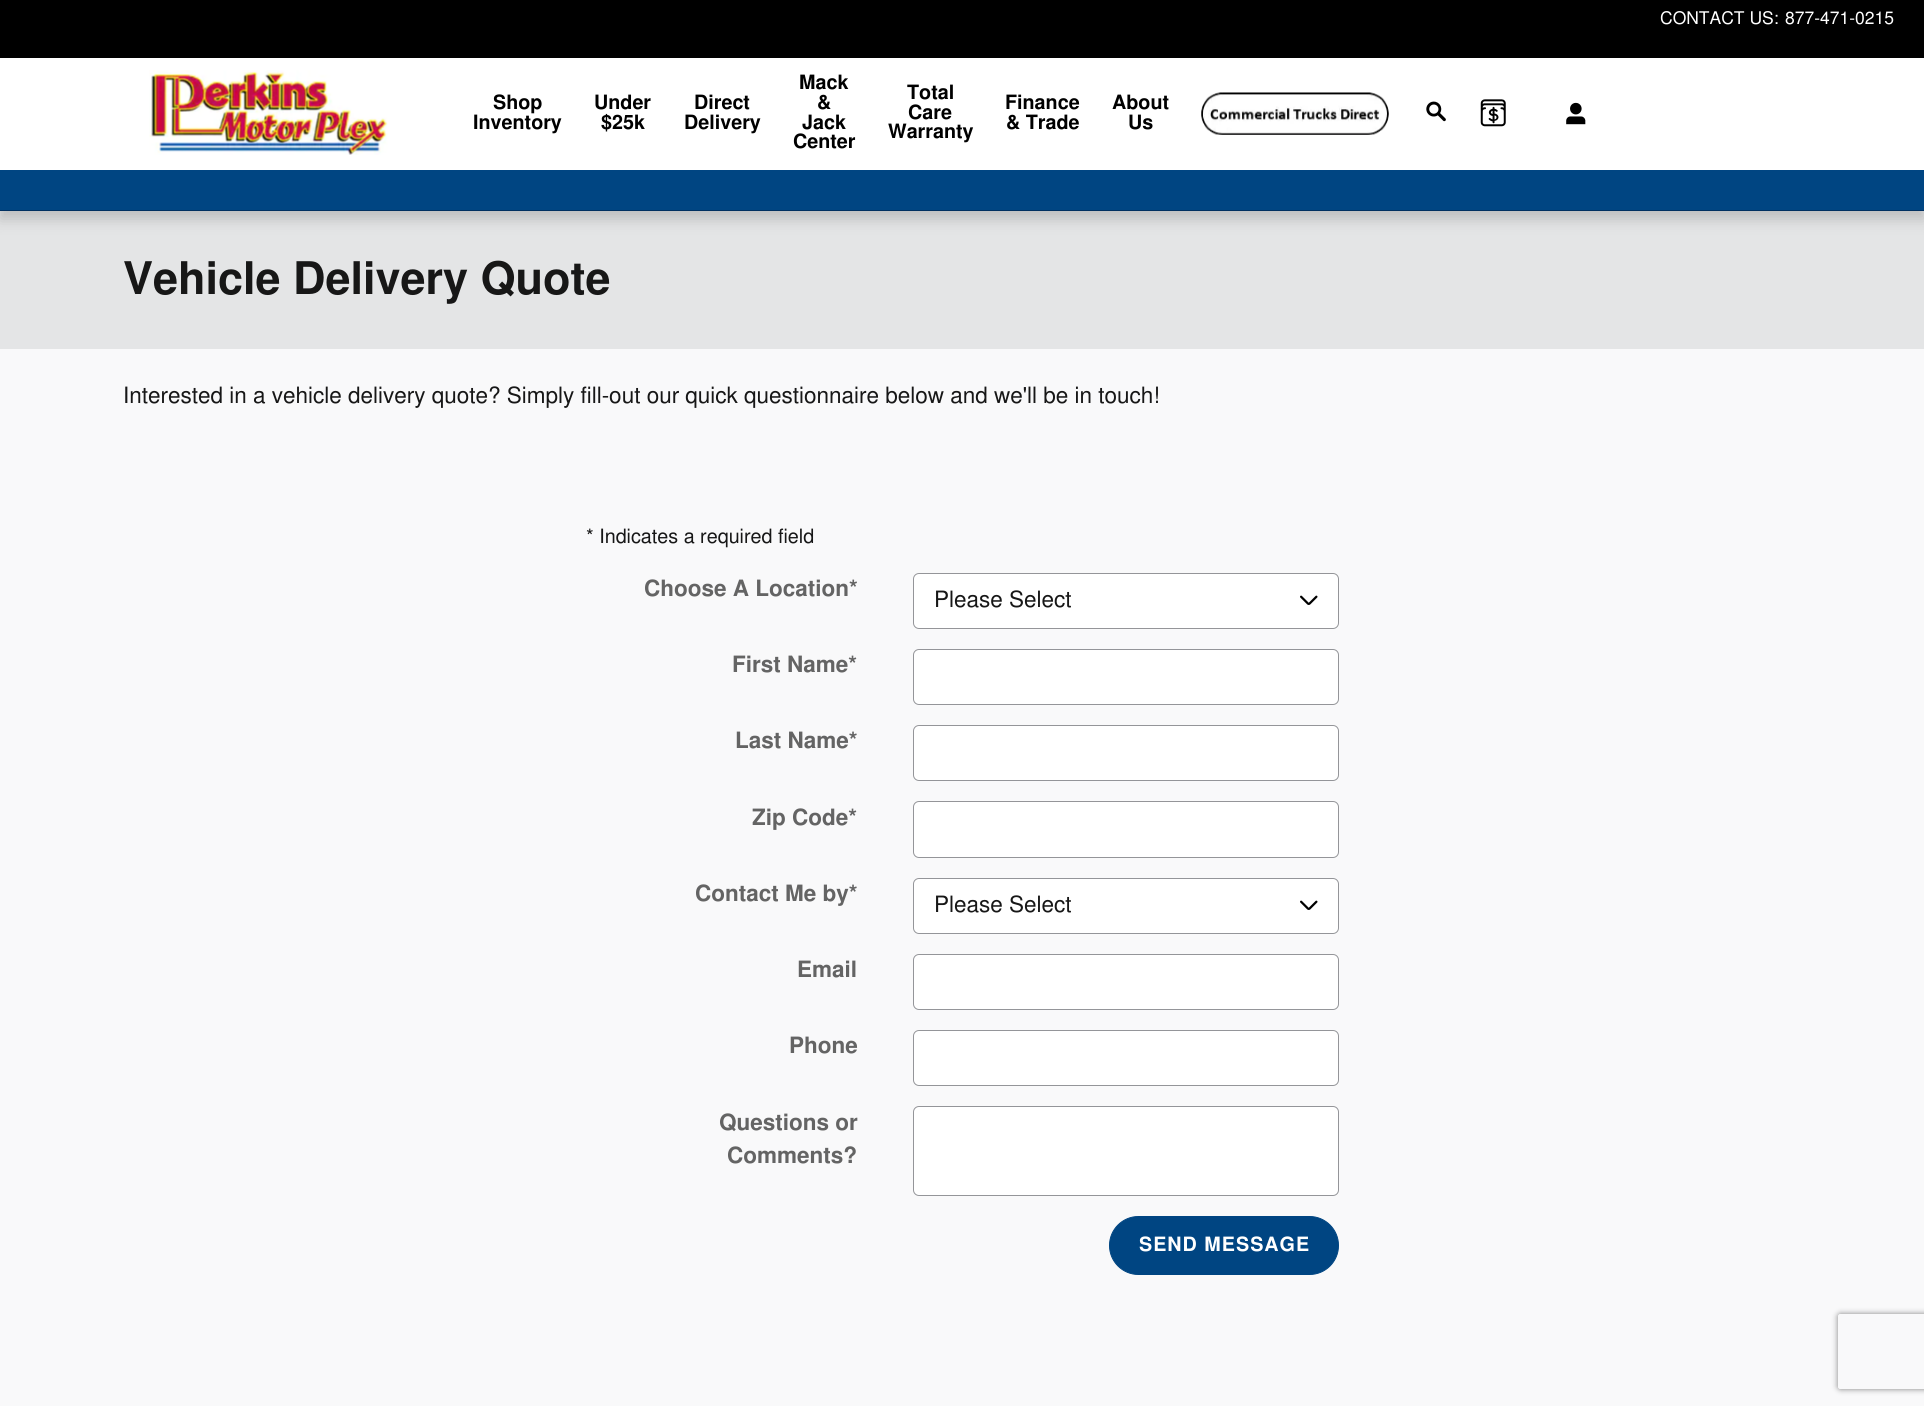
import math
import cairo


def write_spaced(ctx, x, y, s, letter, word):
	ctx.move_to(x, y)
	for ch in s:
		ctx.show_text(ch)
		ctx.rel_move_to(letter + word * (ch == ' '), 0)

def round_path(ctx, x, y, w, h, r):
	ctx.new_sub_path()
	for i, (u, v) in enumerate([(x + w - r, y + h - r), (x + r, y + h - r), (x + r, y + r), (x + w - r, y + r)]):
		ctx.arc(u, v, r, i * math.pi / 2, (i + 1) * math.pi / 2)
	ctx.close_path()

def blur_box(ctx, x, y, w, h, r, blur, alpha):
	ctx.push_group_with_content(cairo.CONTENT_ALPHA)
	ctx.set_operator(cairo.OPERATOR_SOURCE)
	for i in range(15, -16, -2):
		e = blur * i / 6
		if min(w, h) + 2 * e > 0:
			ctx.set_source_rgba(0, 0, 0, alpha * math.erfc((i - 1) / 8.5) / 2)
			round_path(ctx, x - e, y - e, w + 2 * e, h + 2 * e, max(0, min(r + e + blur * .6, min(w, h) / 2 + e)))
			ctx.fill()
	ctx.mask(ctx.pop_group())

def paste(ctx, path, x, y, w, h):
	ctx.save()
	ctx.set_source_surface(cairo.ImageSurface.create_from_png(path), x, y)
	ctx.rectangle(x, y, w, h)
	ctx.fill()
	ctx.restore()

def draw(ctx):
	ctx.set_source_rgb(0.976, 0.976, 0.98)
	ctx.paint()
	ctx.set_source_rgb(0.894, 0.898, 0.902)
	ctx.rectangle(0, 211, 1924, 138)
	ctx.fill()
	ctx.set_source_rgb(0, 0, 0)
	blur_box(ctx, 0, 8, 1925, 211, 0, 7.5, 0.18)
	ctx.set_source_rgb(1, 1, 1)
	ctx.rectangle(0, 58, 1924, 112)
	ctx.fill()
	ctx.set_source_rgb(0, 0.184, 0.376)
	ctx.rectangle(0, 210, 1924, 1)
	ctx.fill()
	ctx.set_source_rgb(0, 0, 0)
	ctx.rectangle(0, 0, 1924, 58)
	ctx.fill()
	ctx.select_font_face('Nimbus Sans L')
	ctx.set_font_size(17.5)
	ctx.set_source_rgb(1, 1, 1)
	ctx.move_to(1660, 24)
	ctx.show_text('CONTACT US:')
	ctx.move_to(1785, 24)
	ctx.show_text('877-471-0215')
	paste(ctx, 'media/1.png', 149, 70, 239, 85)
	ctx.select_font_face('Nimbus Sans L', cairo.FONT_SLANT_NORMAL, cairo.FONT_WEIGHT_BOLD)
	ctx.set_font_size(19.75)
	ctx.set_source_rgb(0, 0, 0)
	for x, y, s in [
		(493, 109, 'Shop'),
		(473, 129, 'Inventory'),
		(594, 109, 'Under'),
		(601, 129, '$25k'),
		(694, 109, 'Direct'),
		(684, 129, 'Delivery'),
		(799, 89, 'Mack'),
		(817, 109, '&'),
		(802, 129, 'Jack'),
		(793, 148, 'Center'),
		(907, 99, 'Total'),
		(908, 119, 'Care'),
		(888, 138, 'Warranty'),
		(1005, 109, 'Finance'),
		(1006, 129, '& Trade'),
		(1112, 109, 'About'),
		(1128, 129, 'Us'),
	]:
		ctx.move_to(x, y)
		ctx.show_text(s)
	paste(ctx, 'media/2.png', 1201, 92, 188, 43)
	paste(ctx, 'media/3.png', 1426, 101, 20, 21)
	paste(ctx, 'media/4.png', 1480, 99, 26, 28)
	paste(ctx, 'media/5.png', 1566, 102, 20, 23)
	ctx.set_source_rgb(0, 0.271, 0.51)
	ctx.rectangle(0, 170, 1924, 40)
	ctx.fill()
	ctx.set_font_size(45)
	ctx.set_source_rgb(0.09, 0.09, 0.09)
	ctx.move_to(123, 294)
	ctx.show_text('Vehicle Delivery Quote')
	ctx.select_font_face('Nimbus Sans L')
	ctx.set_font_size(22.5)
	ctx.move_to(123, 403)
	ctx.show_text('Interested in a vehicle delivery quote? Simply fill-out our quick questionnaire below and we\'ll be in touch!')
	ctx.set_font_size(19.75)
	ctx.move_to(586, 543)
	ctx.show_text('* Indicates a required field')
	ctx.select_font_face('Nimbus Sans L', cairo.FONT_SLANT_NORMAL, cairo.FONT_WEIGHT_BOLD)
	ctx.set_font_size(22.5)
	ctx.set_source_rgb(0.392, 0.392, 0.392)
	ctx.move_to(644, 596)
	ctx.show_text('Choose A Location*')
	ctx.set_source_rgb(1, 1, 1)
	round_path(ctx, 913, 573, 426, 56, 6)
	ctx.fill()
	paste(ctx, 'media/6.png', 1300, 595, 18, 10)
	round_path(ctx, 913.5, 573.5, 425, 55, 5.5)
	ctx.set_source_rgb(0.58, 0.584, 0.6)
	ctx.set_line_width(1)
	ctx.stroke()
	ctx.select_font_face('Nimbus Sans L')
	ctx.set_source_rgb(0.09, 0.09, 0.09)
	ctx.move_to(934, 607)
	ctx.show_text('Please Select')
	ctx.select_font_face('Nimbus Sans L', cairo.FONT_SLANT_NORMAL, cairo.FONT_WEIGHT_BOLD)
	ctx.set_source_rgb(0.392, 0.392, 0.392)
	ctx.move_to(732, 672)
	ctx.show_text('First Name*')
	ctx.set_source_rgb(1, 1, 1)
	round_path(ctx, 913.5, 649.5, 425, 55, 5.5)
	ctx.fill_preserve()
	ctx.set_source_rgb(0.58, 0.584, 0.6)
	ctx.stroke()
	ctx.set_source_rgb(0.392, 0.392, 0.392)
	ctx.move_to(735, 748)
	ctx.show_text('Last Name*')
	ctx.set_source_rgb(1, 1, 1)
	round_path(ctx, 913.5, 725.5, 425, 55, 5.5)
	ctx.fill_preserve()
	ctx.set_source_rgb(0.58, 0.584, 0.6)
	ctx.stroke()
	ctx.set_source_rgb(0.392, 0.392, 0.392)
	ctx.move_to(752, 825)
	ctx.show_text('Zip Code*')
	ctx.set_source_rgb(1, 1, 1)
	round_path(ctx, 913.5, 801.5, 425, 56, 5.5)
	ctx.fill_preserve()
	ctx.set_source_rgb(0.58, 0.584, 0.6)
	ctx.stroke()
	ctx.set_source_rgb(0.392, 0.392, 0.392)
	ctx.move_to(695, 901)
	ctx.show_text('Contact Me by*')
	ctx.set_source_rgb(1, 1, 1)
	round_path(ctx, 913, 878, 426, 56, 6)
	ctx.fill()
	paste(ctx, 'media/6.png', 1300, 900, 18, 10)
	round_path(ctx, 913.5, 878.5, 425, 55, 5.5)
	ctx.set_source_rgb(0.58, 0.584, 0.6)
	ctx.stroke()
	ctx.select_font_face('Nimbus Sans L')
	ctx.set_source_rgb(0.09, 0.09, 0.09)
	ctx.move_to(934, 912)
	ctx.show_text('Please Select')
	ctx.select_font_face('Nimbus Sans L', cairo.FONT_SLANT_NORMAL, cairo.FONT_WEIGHT_BOLD)
	ctx.set_source_rgb(0.392, 0.392, 0.392)
	ctx.move_to(797, 977)
	ctx.show_text('Email')
	ctx.set_source_rgb(1, 1, 1)
	round_path(ctx, 913.5, 954.5, 425, 55, 5.5)
	ctx.fill_preserve()
	ctx.set_source_rgb(0.58, 0.584, 0.6)
	ctx.stroke()
	ctx.set_source_rgb(0.392, 0.392, 0.392)
	ctx.move_to(789, 1053)
	ctx.show_text('Phone')
	ctx.set_source_rgb(1, 1, 1)
	round_path(ctx, 913.5, 1030.5, 425, 55, 5.5)
	ctx.fill_preserve()
	ctx.set_source_rgb(0.58, 0.584, 0.6)
	ctx.stroke()
	ctx.set_source_rgb(0.392, 0.392, 0.392)
	ctx.move_to(719, 1130)
	ctx.show_text('Questions or')
	ctx.move_to(727, 1163)
	ctx.show_text('Comments?')
	ctx.set_source_rgb(1, 1, 1)
	round_path(ctx, 913.5, 1106.5, 425, 89, 5.5)
	ctx.fill_preserve()
	ctx.set_source_rgb(0.58, 0.584, 0.6)
	ctx.stroke()
	ctx.set_source_rgb(0, 0.271, 0.51)
	round_path(ctx, 1109.5, 1216.5, 229, 58, 29)
	ctx.fill_preserve()
	ctx.stroke()
	ctx.set_font_size(19.75)
	ctx.set_source_rgb(1, 1, 1)
	write_spaced(ctx, 1139, 1251, 'SEND MESSAGE', 1, 0)
	ctx.save()
	ctx.set_fill_rule(cairo.FILL_RULE_EVEN_ODD)
	ctx.new_path()
	ctx.move_to(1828, 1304)
	ctx.line_to(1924, 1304)
	ctx.line_to(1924, 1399)
	ctx.line_to(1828, 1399)
	ctx.close_path()
	ctx.move_to(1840.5, 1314)
	ctx.line_to(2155.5, 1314)
	ctx.curve_to(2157, 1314, 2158, 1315, 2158, 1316.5)
	ctx.line_to(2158, 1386.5)
	ctx.curve_to(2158, 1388, 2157, 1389, 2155.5, 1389)
	ctx.line_to(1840.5, 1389)
	ctx.curve_to(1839, 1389, 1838, 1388, 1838, 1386.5)
	ctx.line_to(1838, 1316.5)
	ctx.curve_to(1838, 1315, 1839, 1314, 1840.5, 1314)
	ctx.close_path()
	ctx.clip()
	ctx.set_source_rgb(0.502, 0.502, 0.502)
	blur_box(ctx, 1838, 1314, 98, 75, 2.5, 3, 1)
	ctx.restore()


surface = cairo.ImageSurface(cairo.FORMAT_RGB24, 1924, 1406)
ctx = cairo.Context(surface)
options = cairo.FontOptions()
options.set_hint_metrics(cairo.HINT_METRICS_OFF)
options.set_hint_style(cairo.HINT_STYLE_NONE)
ctx.set_font_options(options)
ctx.set_miter_limit(4)
draw(ctx)
surface.write_to_png('image.png')
